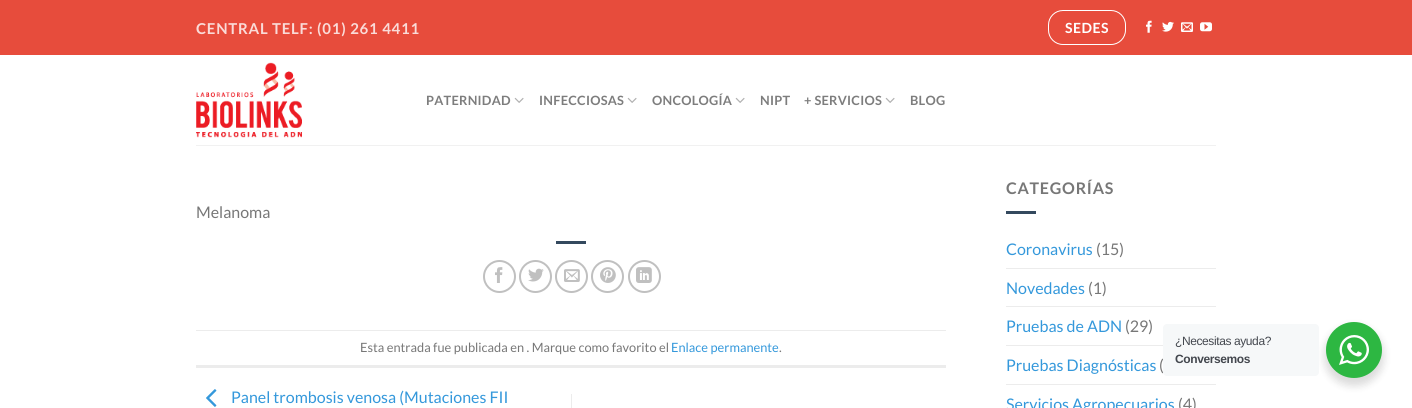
import math
import cairo


def write_spaced(ctx, x, y, s, letter, word):
	ctx.move_to(x, y)
	for ch in s:
		ctx.show_text(ch)
		ctx.rel_move_to(letter + word * (ch == ' '), 0)

def round_path(ctx, x, y, w, h, r):
	ctx.new_sub_path()
	for i, (u, v) in enumerate([(x + w - r, y + h - r), (x + r, y + h - r), (x + r, y + r), (x + w - r, y + r)]):
		ctx.arc(u, v, r, i * math.pi / 2, (i + 1) * math.pi / 2)
	ctx.close_path()

def blur_box(ctx, x, y, w, h, r, blur, alpha):
	ctx.push_group_with_content(cairo.CONTENT_ALPHA)
	ctx.set_operator(cairo.OPERATOR_SOURCE)
	for i in range(15, -16, -2):
		e = blur * i / 6
		if min(w, h) + 2 * e > 0:
			ctx.set_source_rgba(0, 0, 0, alpha * math.erfc((i - 1) / 8.5) / 2)
			round_path(ctx, x - e, y - e, w + 2 * e, h + 2 * e, max(0, min(r + e + blur * .6, min(w, h) / 2 + e)))
			ctx.fill()
	ctx.mask(ctx.pop_group())

def paste(ctx, path, x, y, w, h):
	ctx.save()
	ctx.set_source_surface(cairo.ImageSurface.create_from_png(path), x, y)
	ctx.rectangle(x, y, w, h)
	ctx.fill()
	ctx.restore()

def draw(ctx):
	ctx.set_source_rgb(1, 1, 1)
	ctx.paint()
	ctx.set_source_rgb(0.906, 0.298, 0.235)
	ctx.rectangle(0, 0, 1412, 55)
	ctx.fill()
	ctx.select_font_face('Lato', cairo.FONT_SLANT_NORMAL, cairo.FONT_WEIGHT_BOLD)
	ctx.set_font_size(15)
	ctx.set_source_rgb(0.98, 0.859, 0.847)
	write_spaced(ctx, 196, 34, 'CENTRAL TELF: (01) 261 4411', 0.75, 0)
	round_path(ctx, 1048.5, 10.5, 77, 34, 14.5)
	ctx.set_source_rgb(1, 1, 1)
	ctx.set_line_width(1)
	ctx.stroke()
	ctx.set_font_size(14)
	write_spaced(ctx, 1065, 33, 'SEDES', 0.5, 0)
	paste(ctx, 'media/1.png', 1146, 20, 6, 13)
	paste(ctx, 'media/2.png', 1162, 21, 12, 11)
	paste(ctx, 'media/3.png', 1181, 22, 12, 10)
	paste(ctx, 'media/4.png', 1200, 22, 12, 10)
	paste(ctx, 'media/5.png', 196, 62, 106, 76)
	ctx.set_font_size(12.8)
	ctx.set_source_rgb(0.49, 0.49, 0.49)
	write_spaced(ctx, 426, 105, 'PATERNIDAD', 0.25, 0)
	paste(ctx, 'media/6.png', 514, 97, 10, 6)
	write_spaced(ctx, 539, 105, 'INFECCIOSAS', 0.25, 0)
	paste(ctx, 'media/6.png', 627, 97, 10, 6)
	write_spaced(ctx, 652, 105, 'ONCOLOGÍA', 0.25, 0)
	paste(ctx, 'media/6.png', 735, 97, 10, 6)
	write_spaced(ctx, 760, 105, 'NIPT', 0.25, 0)
	write_spaced(ctx, 804, 105, '+ SERVICIOS', 0.25, 0)
	paste(ctx, 'media/6.png', 885, 97, 10, 6)
	write_spaced(ctx, 910, 105, 'BLOG', 0.25, 0)
	ctx.set_source_rgb(0.945, 0.945, 0.945)
	ctx.rectangle(196, 145, 1020, 1)
	ctx.fill()
	ctx.select_font_face('Lato')
	ctx.set_font_size(16)
	ctx.set_source_rgb(0.467, 0.467, 0.467)
	ctx.move_to(196, 218)
	ctx.show_text('Melanoma')
	ctx.set_source_rgb(0.204, 0.286, 0.369)
	ctx.rectangle(556, 241, 30, 3)
	ctx.fill()
	ctx.arc(499.5, 276.5, 15.5, 0, 2 * math.pi)
	ctx.set_source_rgb(0.753, 0.753, 0.753)
	ctx.set_line_width(2)
	ctx.stroke()
	paste(ctx, 'media/7.png', 495, 267, 8, 16)
	ctx.arc(535.5, 276.5, 15.5, 0, 2 * math.pi)
	ctx.stroke()
	paste(ctx, 'media/8.png', 528, 268, 16, 14)
	ctx.arc(571.5, 276.5, 15.5, 0, 2 * math.pi)
	ctx.stroke()
	paste(ctx, 'media/9.png', 564, 269, 16, 13)
	ctx.arc(607.5, 276.5, 15.5, 0, 2 * math.pi)
	ctx.stroke()
	paste(ctx, 'media/10.png', 600, 267, 16, 16)
	ctx.arc(644.5, 276.5, 15.5, 0, 2 * math.pi)
	ctx.stroke()
	paste(ctx, 'media/11.png', 636, 267, 16, 16)
	ctx.set_source_rgb(0.925, 0.925, 0.925)
	ctx.rectangle(196, 330, 750, 1)
	ctx.fill()
	ctx.rectangle(196, 365, 750, 3)
	ctx.fill()
	ctx.set_font_size(12.8)
	ctx.set_source_rgb(0.467, 0.467, 0.467)
	ctx.move_to(360, 352)
	ctx.show_text('Esta entrada fue publicada en . Marque como favorito el')
	ctx.set_source_rgb(0.204, 0.596, 0.859)
	ctx.move_to(671, 352)
	ctx.show_text('Enlace permanente')
	ctx.set_source_rgb(0.467, 0.467, 0.467)
	ctx.move_to(779, 352)
	ctx.show_text('.')
	paste(ctx, 'media/12.png', 206, 389, 11, 18)
	ctx.set_font_size(16)
	ctx.set_source_rgb(0.204, 0.596, 0.859)
	ctx.move_to(231, 403)
	ctx.show_text('Panel trombosis venosa (Mutaciones FII')
	ctx.set_source_rgb(0.925, 0.925, 0.925)
	ctx.rectangle(571, 394, 1, 14)
	ctx.fill()
	ctx.select_font_face('Lato', cairo.FONT_SLANT_NORMAL, cairo.FONT_WEIGHT_BOLD)
	ctx.set_source_rgb(0.467, 0.467, 0.467)
	write_spaced(ctx, 1006, 194, 'CATEGORÍAS', 0.75, 0)
	ctx.set_source_rgb(0.204, 0.286, 0.369)
	ctx.rectangle(1006, 211, 30, 3)
	ctx.fill()
	ctx.select_font_face('Lato')
	ctx.set_source_rgb(0.204, 0.596, 0.859)
	ctx.move_to(1006, 255)
	ctx.show_text('Coronavirus')
	ctx.set_source_rgb(0.467, 0.467, 0.467)
	ctx.move_to(1096, 255)
	ctx.show_text('(15)')
	ctx.set_source_rgb(0.925, 0.925, 0.925)
	ctx.rectangle(1006, 268, 210, 1)
	ctx.fill()
	ctx.set_source_rgb(0.204, 0.596, 0.859)
	ctx.move_to(1006, 294)
	ctx.show_text('Novedades')
	ctx.set_source_rgb(0.467, 0.467, 0.467)
	ctx.move_to(1088, 294)
	ctx.show_text('(1)')
	ctx.set_source_rgb(0.925, 0.925, 0.925)
	ctx.rectangle(1006, 306, 210, 1)
	ctx.fill()
	ctx.set_source_rgb(0.204, 0.596, 0.859)
	ctx.move_to(1006, 332)
	ctx.show_text('Pruebas de ADN')
	ctx.set_source_rgb(0.467, 0.467, 0.467)
	ctx.move_to(1125, 332)
	ctx.show_text('(29)')
	ctx.set_source_rgb(0.925, 0.925, 0.925)
	ctx.rectangle(1006, 345, 157, 1)
	ctx.fill()
	ctx.set_source_rgb(0.204, 0.596, 0.859)
	ctx.move_to(1006, 371)
	ctx.show_text('Pruebas Diagnósticas')
	ctx.set_source_rgb(0.467, 0.467, 0.467)
	ctx.move_to(1159, 371)
	ctx.show_text('(')
	ctx.set_source_rgb(0.925, 0.925, 0.925)
	ctx.rectangle(1006, 384, 210, 1)
	ctx.fill()
	ctx.set_source_rgb(0.204, 0.596, 0.859)
	ctx.move_to(1006, 410)
	ctx.show_text('Servicios Agropecuarios')
	ctx.set_source_rgb(0.467, 0.467, 0.467)
	ctx.move_to(1178, 410)
	ctx.show_text('(4)')
	ctx.set_source_rgb(0, 0, 0)
	blur_box(ctx, 1324, 326, 60, 60, 30, 4, 0.14)
	ctx.set_source_rgb(0.961, 0.969, 0.976)
	round_path(ctx, 1163, 324, 156, 52, 4)
	ctx.fill()
	ctx.select_font_face('Liberation Sans')
	ctx.set_font_size(12)
	ctx.set_source_rgb(0.263, 0.278, 0.306)
	write_spaced(ctx, 1175, 345, '¿Necesitas ayuda?', -0.4, 0)
	ctx.select_font_face('Liberation Sans', cairo.FONT_SLANT_NORMAL, cairo.FONT_WEIGHT_BOLD)
	write_spaced(ctx, 1175, 363, 'Conversemos', -0.4, 0)
	ctx.set_source_rgb(0.176, 0.718, 0.259)
	ctx.new_path()
	ctx.arc(1354, 350, 28, 0, 2 * math.pi)
	ctx.fill()
	paste(ctx, 'media/13.png', 1339, 335, 30, 30)


surface = cairo.ImageSurface(cairo.FORMAT_RGB24, 1412, 408)
ctx = cairo.Context(surface)
options = cairo.FontOptions()
options.set_hint_metrics(cairo.HINT_METRICS_OFF)
options.set_hint_style(cairo.HINT_STYLE_NONE)
ctx.set_font_options(options)
ctx.set_miter_limit(4)
draw(ctx)
surface.write_to_png('image.png')
